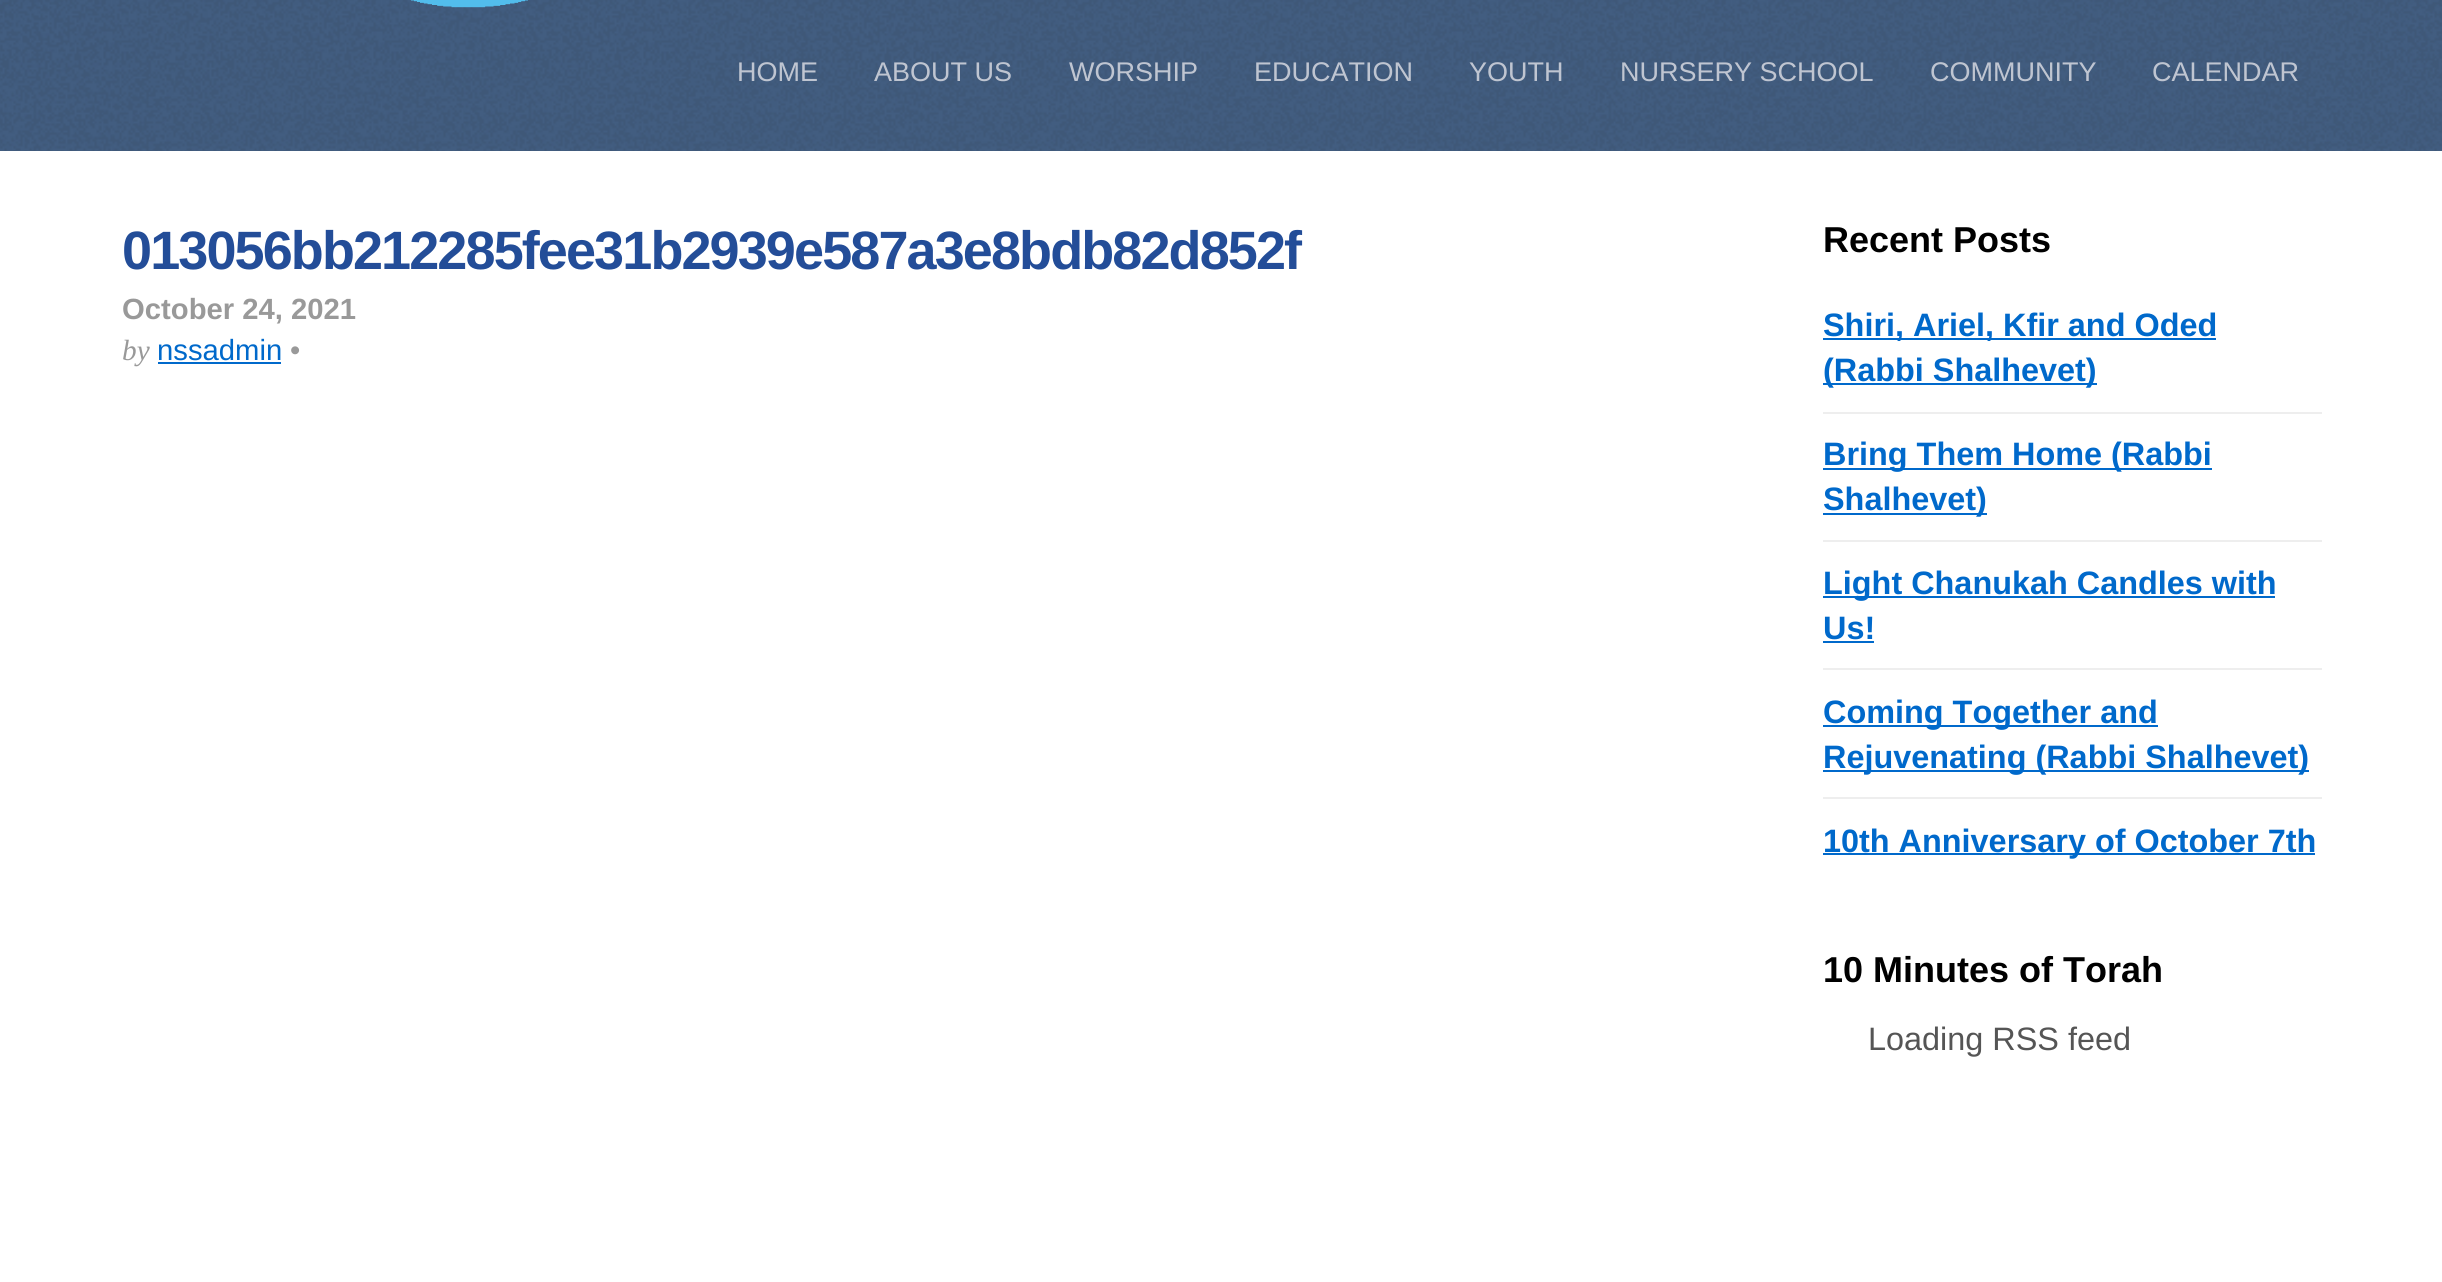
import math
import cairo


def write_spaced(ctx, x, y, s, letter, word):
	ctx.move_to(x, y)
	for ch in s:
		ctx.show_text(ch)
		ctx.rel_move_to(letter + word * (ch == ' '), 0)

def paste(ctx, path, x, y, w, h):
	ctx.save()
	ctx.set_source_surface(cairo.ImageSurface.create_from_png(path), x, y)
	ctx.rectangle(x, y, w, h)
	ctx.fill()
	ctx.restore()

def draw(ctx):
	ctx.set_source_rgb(1, 1, 1)
	ctx.paint()
	paste(ctx, 'media/1.png', 0, 0, 2442, 151)
	paste(ctx, 'media/2.png', 411, 0, 117, 8)
	ctx.select_font_face('Liberation Sans')
	ctx.set_font_size(27)
	ctx.set_source_rgb(0.749, 0.773, 0.82)
	for x, y, s in [
		(737, 81, 'HOME'),
		(874, 81, 'ABOUT US'),
		(1069, 81, 'WORSHIP'),
		(1254, 81, 'EDUCATION'),
		(1469, 81, 'YOUTH'),
		(1620, 81, 'NURSERY SCHOOL'),
		(1930, 81, 'COMMUNITY'),
		(2152, 81, 'CALENDAR'),
	]:
		ctx.move_to(x, y)
		ctx.show_text(s)
	ctx.select_font_face('Liberation Sans', cairo.FONT_SLANT_NORMAL, cairo.FONT_WEIGHT_BOLD)
	ctx.set_font_size(54)
	ctx.set_source_rgb(0.137, 0.302, 0.596)
	write_spaced(ctx, 122, 269, '013056bb212285fee31b2939e587a3e8bdb82d852f', -1.9, 0)
	ctx.set_font_size(29.25)
	ctx.set_source_rgb(0.6, 0.6, 0.6)
	ctx.move_to(122, 319)
	ctx.show_text('October 24, 2021')
	ctx.select_font_face('Liberation Serif', cairo.FONT_SLANT_ITALIC)
	ctx.move_to(122, 360)
	ctx.show_text('by')
	ctx.select_font_face('Liberation Sans')
	ctx.set_source_rgb(0, 0.412, 0.796)
	ctx.move_to(157, 360)
	ctx.show_text('nssadmin')
	ctx.rectangle(158, 362, 123, 2)
	ctx.fill()
	ctx.set_source_rgb(0.6, 0.6, 0.6)
	ctx.move_to(290, 360)
	ctx.show_text('•')
	ctx.select_font_face('Liberation Sans', cairo.FONT_SLANT_NORMAL, cairo.FONT_WEIGHT_BOLD)
	ctx.set_font_size(36)
	ctx.set_source_rgb(0, 0, 0)
	ctx.move_to(1823, 252)
	ctx.show_text('Recent Posts')
	ctx.set_source_rgb(0, 0.412, 0.796)
	ctx.rectangle(1823, 338, 393, 2)
	ctx.fill()
	ctx.set_font_size(32.4)
	ctx.move_to(1823, 336)
	ctx.show_text('Shiri, Ariel, Kfir and Oded')
	ctx.rectangle(1823, 383, 274, 2)
	ctx.fill()
	ctx.move_to(1823, 381)
	ctx.show_text('(Rabbi Shalhevet)')
	ctx.set_source_rgb(0.933, 0.933, 0.933)
	ctx.rectangle(1823, 412, 499, 2)
	ctx.fill()
	ctx.set_source_rgb(0, 0.412, 0.796)
	ctx.rectangle(1823, 468, 389, 2)
	ctx.fill()
	ctx.move_to(1823, 465)
	ctx.show_text('Bring Them Home (Rabbi')
	ctx.rectangle(1823, 513, 164, 2)
	ctx.fill()
	ctx.move_to(1823, 510)
	ctx.show_text('Shalhevet)')
	ctx.set_source_rgb(0.933, 0.933, 0.933)
	ctx.rectangle(1823, 540, 499, 2)
	ctx.fill()
	ctx.set_source_rgb(0, 0.412, 0.796)
	ctx.rectangle(1823, 596, 452, 2)
	ctx.fill()
	ctx.move_to(1823, 594)
	ctx.show_text('Light Chanukah Candles with')
	ctx.move_to(1823, 639)
	ctx.show_text('Us!')
	ctx.rectangle(1823, 641, 51, 2)
	ctx.fill()
	ctx.set_source_rgb(0.933, 0.933, 0.933)
	ctx.rectangle(1823, 668, 499, 2)
	ctx.fill()
	ctx.set_source_rgb(0, 0.412, 0.796)
	ctx.rectangle(1823, 725, 335, 2)
	ctx.fill()
	ctx.move_to(1823, 723)
	ctx.show_text('Coming Together and')
	ctx.rectangle(1823, 770, 486, 2)
	ctx.fill()
	ctx.move_to(1823, 768)
	ctx.show_text('Rejuvenating (Rabbi Shalhevet)')
	ctx.set_source_rgb(0.933, 0.933, 0.933)
	ctx.rectangle(1823, 797, 499, 2)
	ctx.fill()
	ctx.set_source_rgb(0, 0.412, 0.796)
	ctx.rectangle(1823, 853, 492, 2)
	ctx.fill()
	ctx.move_to(1823, 852)
	ctx.show_text('10th Anniversary of October 7th')
	ctx.set_font_size(36)
	ctx.set_source_rgb(0, 0, 0)
	ctx.move_to(1823, 982)
	ctx.show_text('10 Minutes of Torah')
	ctx.select_font_face('Liberation Sans')
	ctx.set_font_size(32.4)
	ctx.set_source_rgb(0.333, 0.333, 0.333)
	ctx.move_to(1868, 1050)
	ctx.show_text('Loading RSS feed')


surface = cairo.ImageSurface(cairo.FORMAT_RGB24, 2442, 1282)
ctx = cairo.Context(surface)
options = cairo.FontOptions()
options.set_hint_metrics(cairo.HINT_METRICS_OFF)
options.set_hint_style(cairo.HINT_STYLE_NONE)
ctx.set_font_options(options)
ctx.set_miter_limit(4)
draw(ctx)
surface.write_to_png('image.png')
